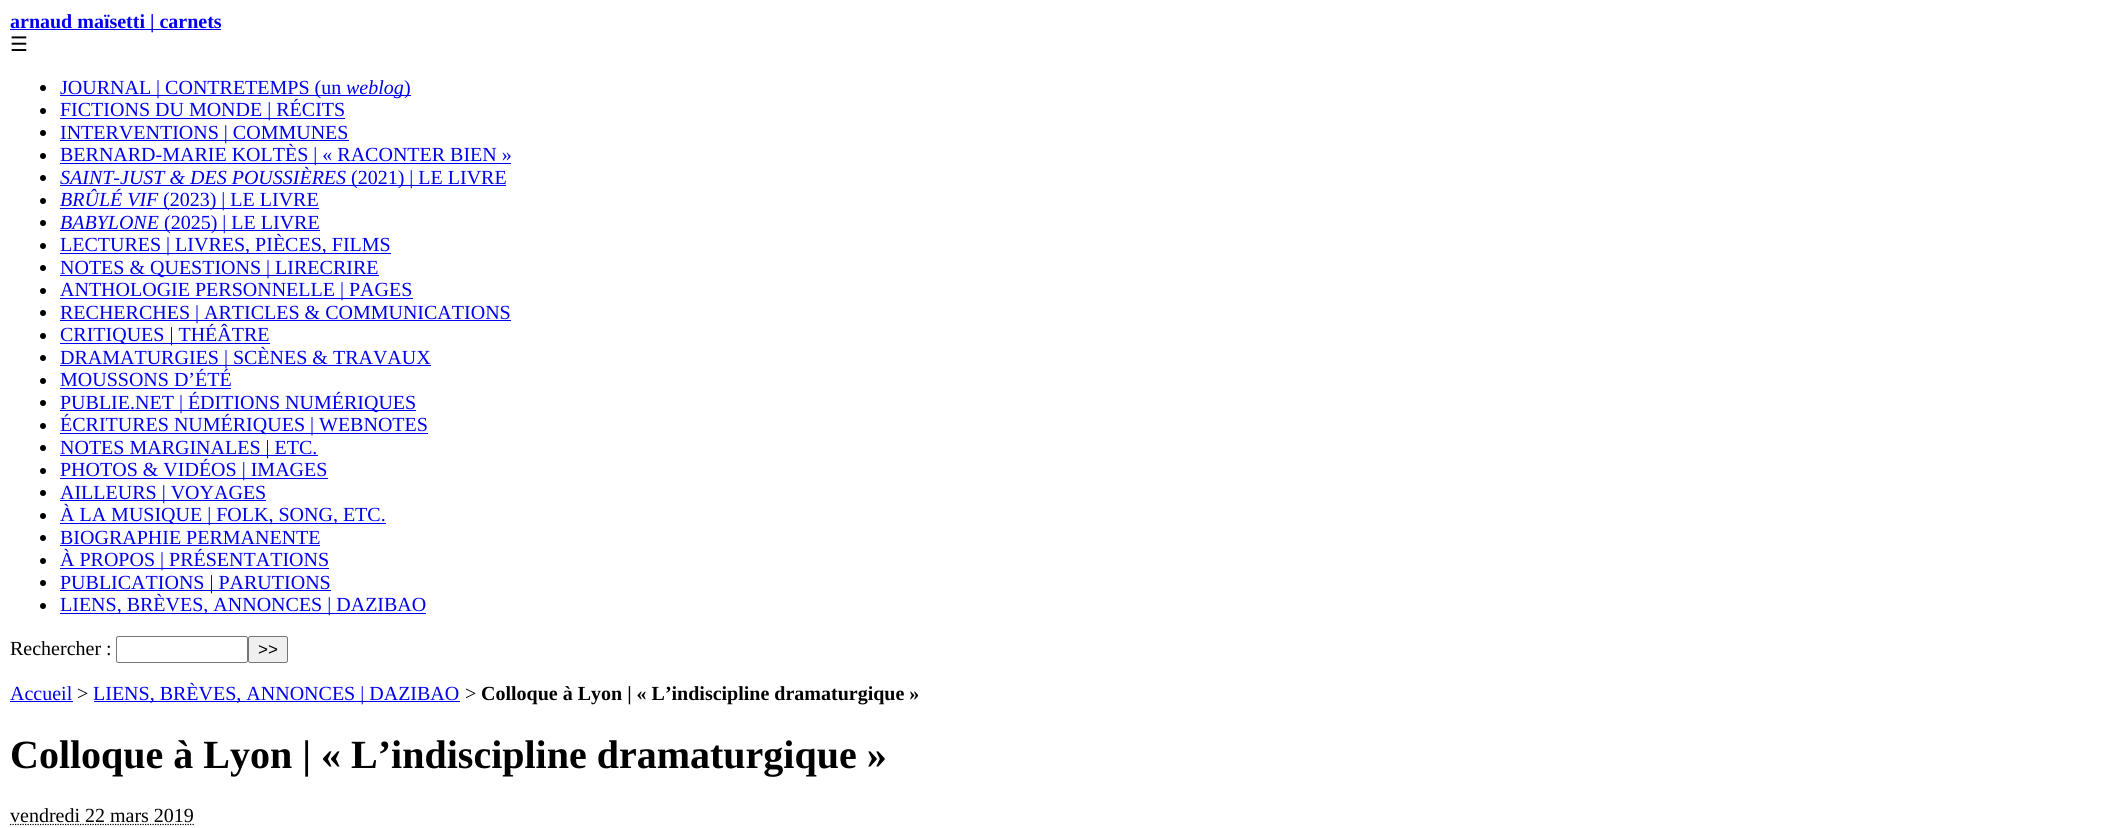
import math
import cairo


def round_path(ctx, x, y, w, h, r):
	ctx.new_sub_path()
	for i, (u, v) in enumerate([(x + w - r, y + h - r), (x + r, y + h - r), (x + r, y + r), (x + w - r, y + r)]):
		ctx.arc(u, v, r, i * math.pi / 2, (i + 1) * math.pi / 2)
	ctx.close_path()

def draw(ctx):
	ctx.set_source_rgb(1, 1, 1)
	ctx.paint()
	ctx.set_source_rgb(0, 0, 0.933)
	ctx.rectangle(10, 29, 211, 1)
	ctx.fill()
	ctx.select_font_face('Liberation Serif', cairo.FONT_SLANT_NORMAL, cairo.FONT_WEIGHT_BOLD)
	ctx.set_font_size(20)
	ctx.move_to(10, 28)
	ctx.show_text('arnaud maïsetti | carnets')
	ctx.select_font_face('DejaVu Sans')
	ctx.set_source_rgb(0, 0, 0)
	ctx.move_to(10, 51)
	ctx.show_text('☰')
	ctx.new_path()
	ctx.arc(43, 88, 3, 0, 2 * math.pi)
	ctx.fill()
	ctx.set_source_rgb(0, 0, 0.933)
	ctx.rectangle(60, 95, 351, 1)
	ctx.fill()
	ctx.select_font_face('Liberation Serif')
	ctx.move_to(60, 94)
	ctx.show_text('JOURNAL | CONTRETEMPS (un')
	ctx.select_font_face('Liberation Serif', cairo.FONT_SLANT_ITALIC)
	ctx.move_to(346, 94)
	ctx.show_text('weblog')
	ctx.select_font_face('Liberation Serif')
	ctx.move_to(404, 94)
	ctx.show_text(')')
	ctx.set_source_rgb(0, 0, 0)
	ctx.new_path()
	ctx.arc(43, 111, 3, 0, 2 * math.pi)
	ctx.fill()
	ctx.set_source_rgb(0, 0, 0.933)
	ctx.rectangle(60, 118, 285, 1)
	ctx.fill()
	ctx.move_to(60, 116)
	ctx.show_text('FICTIONS DU MONDE | RÉCITS')
	ctx.set_source_rgb(0, 0, 0)
	ctx.new_path()
	ctx.arc(43, 133, 3, 0, 2 * math.pi)
	ctx.fill()
	ctx.set_source_rgb(0, 0, 0.933)
	ctx.rectangle(60, 140, 289, 1)
	ctx.fill()
	ctx.move_to(60, 139)
	ctx.show_text('INTERVENTIONS | COMMUNES')
	ctx.set_source_rgb(0, 0, 0)
	ctx.new_path()
	ctx.arc(43, 156, 3, 0, 2 * math.pi)
	ctx.fill()
	ctx.set_source_rgb(0, 0, 0.933)
	ctx.rectangle(60, 163, 451, 1)
	ctx.fill()
	ctx.move_to(60, 161)
	ctx.show_text('BERNARD-MARIE KOLTÈS | « RACONTER BIEN »')
	ctx.set_source_rgb(0, 0, 0)
	ctx.new_path()
	ctx.arc(43, 178, 3, 0, 2 * math.pi)
	ctx.fill()
	ctx.select_font_face('Liberation Serif', cairo.FONT_SLANT_ITALIC)
	ctx.set_source_rgb(0, 0, 0.933)
	ctx.move_to(60, 184)
	ctx.show_text('SAINT-JUST & DES POUSSIÈRES')
	ctx.rectangle(60, 185, 446, 1)
	ctx.fill()
	ctx.select_font_face('Liberation Serif')
	ctx.move_to(351, 184)
	ctx.show_text('(2021) | LE LIVRE')
	ctx.set_source_rgb(0, 0, 0)
	ctx.new_path()
	ctx.arc(43, 201, 3, 0, 2 * math.pi)
	ctx.fill()
	ctx.select_font_face('Liberation Serif', cairo.FONT_SLANT_ITALIC)
	ctx.set_source_rgb(0, 0, 0.933)
	ctx.move_to(60, 206)
	ctx.show_text('BRÛLÉ VIF')
	ctx.rectangle(60, 208, 259, 1)
	ctx.fill()
	ctx.select_font_face('Liberation Serif')
	ctx.move_to(163, 206)
	ctx.show_text('(2023) | LE LIVRE')
	ctx.set_source_rgb(0, 0, 0)
	ctx.new_path()
	ctx.arc(43, 223, 3, 0, 2 * math.pi)
	ctx.fill()
	ctx.select_font_face('Liberation Serif', cairo.FONT_SLANT_ITALIC)
	ctx.set_source_rgb(0, 0, 0.933)
	ctx.move_to(60, 229)
	ctx.show_text('BABYLONE')
	ctx.rectangle(60, 230, 260, 1)
	ctx.fill()
	ctx.select_font_face('Liberation Serif')
	ctx.move_to(164, 229)
	ctx.show_text('(2025) | LE LIVRE')
	ctx.set_source_rgb(0, 0, 0)
	ctx.new_path()
	ctx.arc(43, 246, 3, 0, 2 * math.pi)
	ctx.fill()
	ctx.set_source_rgb(0, 0, 0.933)
	ctx.rectangle(60, 253, 331, 1)
	ctx.fill()
	ctx.move_to(60, 251)
	ctx.show_text('LECTURES | LIVRES, PIÈCES, FILMS')
	ctx.set_source_rgb(0, 0, 0)
	ctx.new_path()
	ctx.arc(43, 268, 3, 0, 2 * math.pi)
	ctx.fill()
	ctx.set_source_rgb(0, 0, 0.933)
	ctx.rectangle(60, 275, 319, 1)
	ctx.fill()
	ctx.move_to(60, 274)
	ctx.show_text('NOTES & QUESTIONS | LIRECRIRE')
	ctx.set_source_rgb(0, 0, 0)
	ctx.new_path()
	ctx.arc(43, 291, 3, 0, 2 * math.pi)
	ctx.fill()
	ctx.set_source_rgb(0, 0, 0.933)
	ctx.rectangle(60, 298, 353, 1)
	ctx.fill()
	ctx.move_to(60, 296)
	ctx.show_text('ANTHOLOGIE PERSONNELLE | PAGES')
	ctx.set_source_rgb(0, 0, 0)
	ctx.new_path()
	ctx.arc(43, 313, 3, 0, 2 * math.pi)
	ctx.fill()
	ctx.set_source_rgb(0, 0, 0.933)
	ctx.rectangle(60, 320, 451, 1)
	ctx.fill()
	ctx.move_to(60, 319)
	ctx.show_text('RECHERCHES | ARTICLES & COMMUNICATIONS')
	ctx.set_source_rgb(0, 0, 0)
	ctx.new_path()
	ctx.arc(43, 336, 3, 0, 2 * math.pi)
	ctx.fill()
	ctx.set_source_rgb(0, 0, 0.933)
	ctx.rectangle(60, 343, 210, 1)
	ctx.fill()
	ctx.move_to(60, 341)
	ctx.show_text('CRITIQUES | THÉÂTRE')
	ctx.set_source_rgb(0, 0, 0)
	ctx.new_path()
	ctx.arc(43, 358, 3, 0, 2 * math.pi)
	ctx.fill()
	ctx.set_source_rgb(0, 0, 0.933)
	ctx.rectangle(60, 365, 371, 1)
	ctx.fill()
	ctx.move_to(60, 364)
	ctx.show_text('DRAMATURGIES | SCÈNES & TRAVAUX')
	ctx.set_source_rgb(0, 0, 0)
	ctx.new_path()
	ctx.arc(43, 381, 3, 0, 2 * math.pi)
	ctx.fill()
	ctx.set_source_rgb(0, 0, 0.933)
	ctx.move_to(60, 386)
	ctx.show_text('MOUSSONS D’ÉTÉ')
	ctx.rectangle(60, 388, 171, 1)
	ctx.fill()
	ctx.set_source_rgb(0, 0, 0)
	ctx.arc(43, 403, 3, 0, 2 * math.pi)
	ctx.fill()
	ctx.set_source_rgb(0, 0, 0.933)
	ctx.rectangle(60, 410, 356, 1)
	ctx.fill()
	ctx.move_to(60, 409)
	ctx.show_text('PUBLIE.NET | ÉDITIONS NUMÉRIQUES')
	ctx.set_source_rgb(0, 0, 0)
	ctx.new_path()
	ctx.arc(43, 426, 3, 0, 2 * math.pi)
	ctx.fill()
	ctx.set_source_rgb(0, 0, 0.933)
	ctx.rectangle(60, 433, 368, 1)
	ctx.fill()
	ctx.move_to(60, 431)
	ctx.show_text('ÉCRITURES NUMÉRIQUES | WEBNOTES')
	ctx.set_source_rgb(0, 0, 0)
	ctx.new_path()
	ctx.arc(43, 448, 3, 0, 2 * math.pi)
	ctx.fill()
	ctx.set_source_rgb(0, 0, 0.933)
	ctx.rectangle(60, 455, 258, 1)
	ctx.fill()
	ctx.move_to(60, 454)
	ctx.show_text('NOTES MARGINALES | ETC.')
	ctx.set_source_rgb(0, 0, 0)
	ctx.new_path()
	ctx.arc(43, 471, 3, 0, 2 * math.pi)
	ctx.fill()
	ctx.set_source_rgb(0, 0, 0.933)
	ctx.rectangle(60, 478, 268, 1)
	ctx.fill()
	ctx.move_to(60, 476)
	ctx.show_text('PHOTOS & VIDÉOS | IMAGES')
	ctx.set_source_rgb(0, 0, 0)
	ctx.new_path()
	ctx.arc(43, 493, 3, 0, 2 * math.pi)
	ctx.fill()
	ctx.set_source_rgb(0, 0, 0.933)
	ctx.rectangle(60, 500, 206, 1)
	ctx.fill()
	ctx.move_to(60, 499)
	ctx.show_text('AILLEURS | VOYAGES')
	ctx.set_source_rgb(0, 0, 0)
	ctx.new_path()
	ctx.arc(43, 516, 3, 0, 2 * math.pi)
	ctx.fill()
	ctx.set_source_rgb(0, 0, 0.933)
	ctx.rectangle(60, 523, 326, 1)
	ctx.fill()
	ctx.move_to(60, 521)
	ctx.show_text('À LA MUSIQUE | FOLK, SONG, ETC.')
	ctx.set_source_rgb(0, 0, 0)
	ctx.new_path()
	ctx.arc(43, 538, 3, 0, 2 * math.pi)
	ctx.fill()
	ctx.set_source_rgb(0, 0, 0.933)
	ctx.move_to(60, 544)
	ctx.show_text('BIOGRAPHIE PERMANENTE')
	ctx.rectangle(60, 545, 260, 1)
	ctx.fill()
	ctx.set_source_rgb(0, 0, 0)
	ctx.arc(43, 561, 3, 0, 2 * math.pi)
	ctx.fill()
	ctx.set_source_rgb(0, 0, 0.933)
	ctx.rectangle(60, 568, 269, 1)
	ctx.fill()
	ctx.move_to(60, 566)
	ctx.show_text('À PROPOS | PRÉSENTATIONS')
	ctx.set_source_rgb(0, 0, 0)
	ctx.new_path()
	ctx.arc(43, 583, 3, 0, 2 * math.pi)
	ctx.fill()
	ctx.set_source_rgb(0, 0, 0.933)
	ctx.rectangle(60, 590, 271, 1)
	ctx.fill()
	ctx.move_to(60, 589)
	ctx.show_text('PUBLICATIONS | PARUTIONS')
	ctx.set_source_rgb(0, 0, 0)
	ctx.new_path()
	ctx.arc(43, 606, 3, 0, 2 * math.pi)
	ctx.fill()
	ctx.set_source_rgb(0, 0, 0.933)
	ctx.rectangle(60, 613, 366, 1)
	ctx.fill()
	ctx.move_to(60, 611)
	ctx.show_text('LIENS, BRÈVES, ANNONCES | DAZIBAO')
	ctx.set_source_rgb(0, 0, 0)
	ctx.move_to(10, 655)
	ctx.show_text('Rechercher :')
	round_path(ctx, 116.5, 636.5, 131, 26, 2)
	ctx.set_source_rgb(0.463, 0.463, 0.463)
	ctx.set_line_width(1)
	ctx.stroke()
	ctx.set_source_rgb(0.937, 0.937, 0.937)
	round_path(ctx, 248.5, 636.5, 39, 26, 2)
	ctx.fill_preserve()
	ctx.set_source_rgb(0.463, 0.463, 0.463)
	ctx.stroke()
	ctx.select_font_face('Liberation Sans')
	ctx.set_font_size(17)
	ctx.set_source_rgb(0, 0, 0)
	ctx.move_to(258, 655)
	ctx.show_text('>>')
	ctx.select_font_face('Liberation Serif')
	ctx.set_font_size(20)
	ctx.set_source_rgb(0, 0, 0.933)
	ctx.move_to(10, 700)
	ctx.show_text('Accueil')
	ctx.rectangle(10, 701, 63, 1)
	ctx.fill()
	ctx.set_source_rgb(0, 0, 0)
	ctx.move_to(77, 700)
	ctx.show_text('>')
	ctx.set_source_rgb(0, 0, 0.933)
	ctx.rectangle(94, 701, 366, 1)
	ctx.fill()
	ctx.move_to(93, 700)
	ctx.show_text('LIENS, BRÈVES, ANNONCES | DAZIBAO')
	ctx.set_source_rgb(0, 0, 0)
	ctx.move_to(465, 700)
	ctx.show_text('>')
	ctx.select_font_face('Liberation Serif', cairo.FONT_SLANT_NORMAL, cairo.FONT_WEIGHT_BOLD)
	ctx.move_to(481, 700)
	ctx.show_text('Colloque à Lyon | « L’indiscipline dramaturgique »')
	ctx.set_font_size(40)
	ctx.move_to(10, 768)
	ctx.show_text('Colloque à Lyon | « L’indiscipline dramaturgique »')
	ctx.select_font_face('Liberation Serif')
	ctx.set_font_size(20)
	ctx.move_to(10, 822)
	ctx.show_text('vendredi 22 mars 2019')
	ctx.new_path()
	ctx.move_to(10, 824.5)
	ctx.line_to(194, 824.5)
	ctx.set_line_width(1.2)
	ctx.set_dash([1.25, 1.25])
	ctx.stroke()


surface = cairo.ImageSurface(cairo.FORMAT_RGB24, 2102, 828)
ctx = cairo.Context(surface)
options = cairo.FontOptions()
options.set_hint_metrics(cairo.HINT_METRICS_OFF)
options.set_hint_style(cairo.HINT_STYLE_NONE)
ctx.set_font_options(options)
ctx.set_miter_limit(4)
draw(ctx)
surface.write_to_png('image.png')
